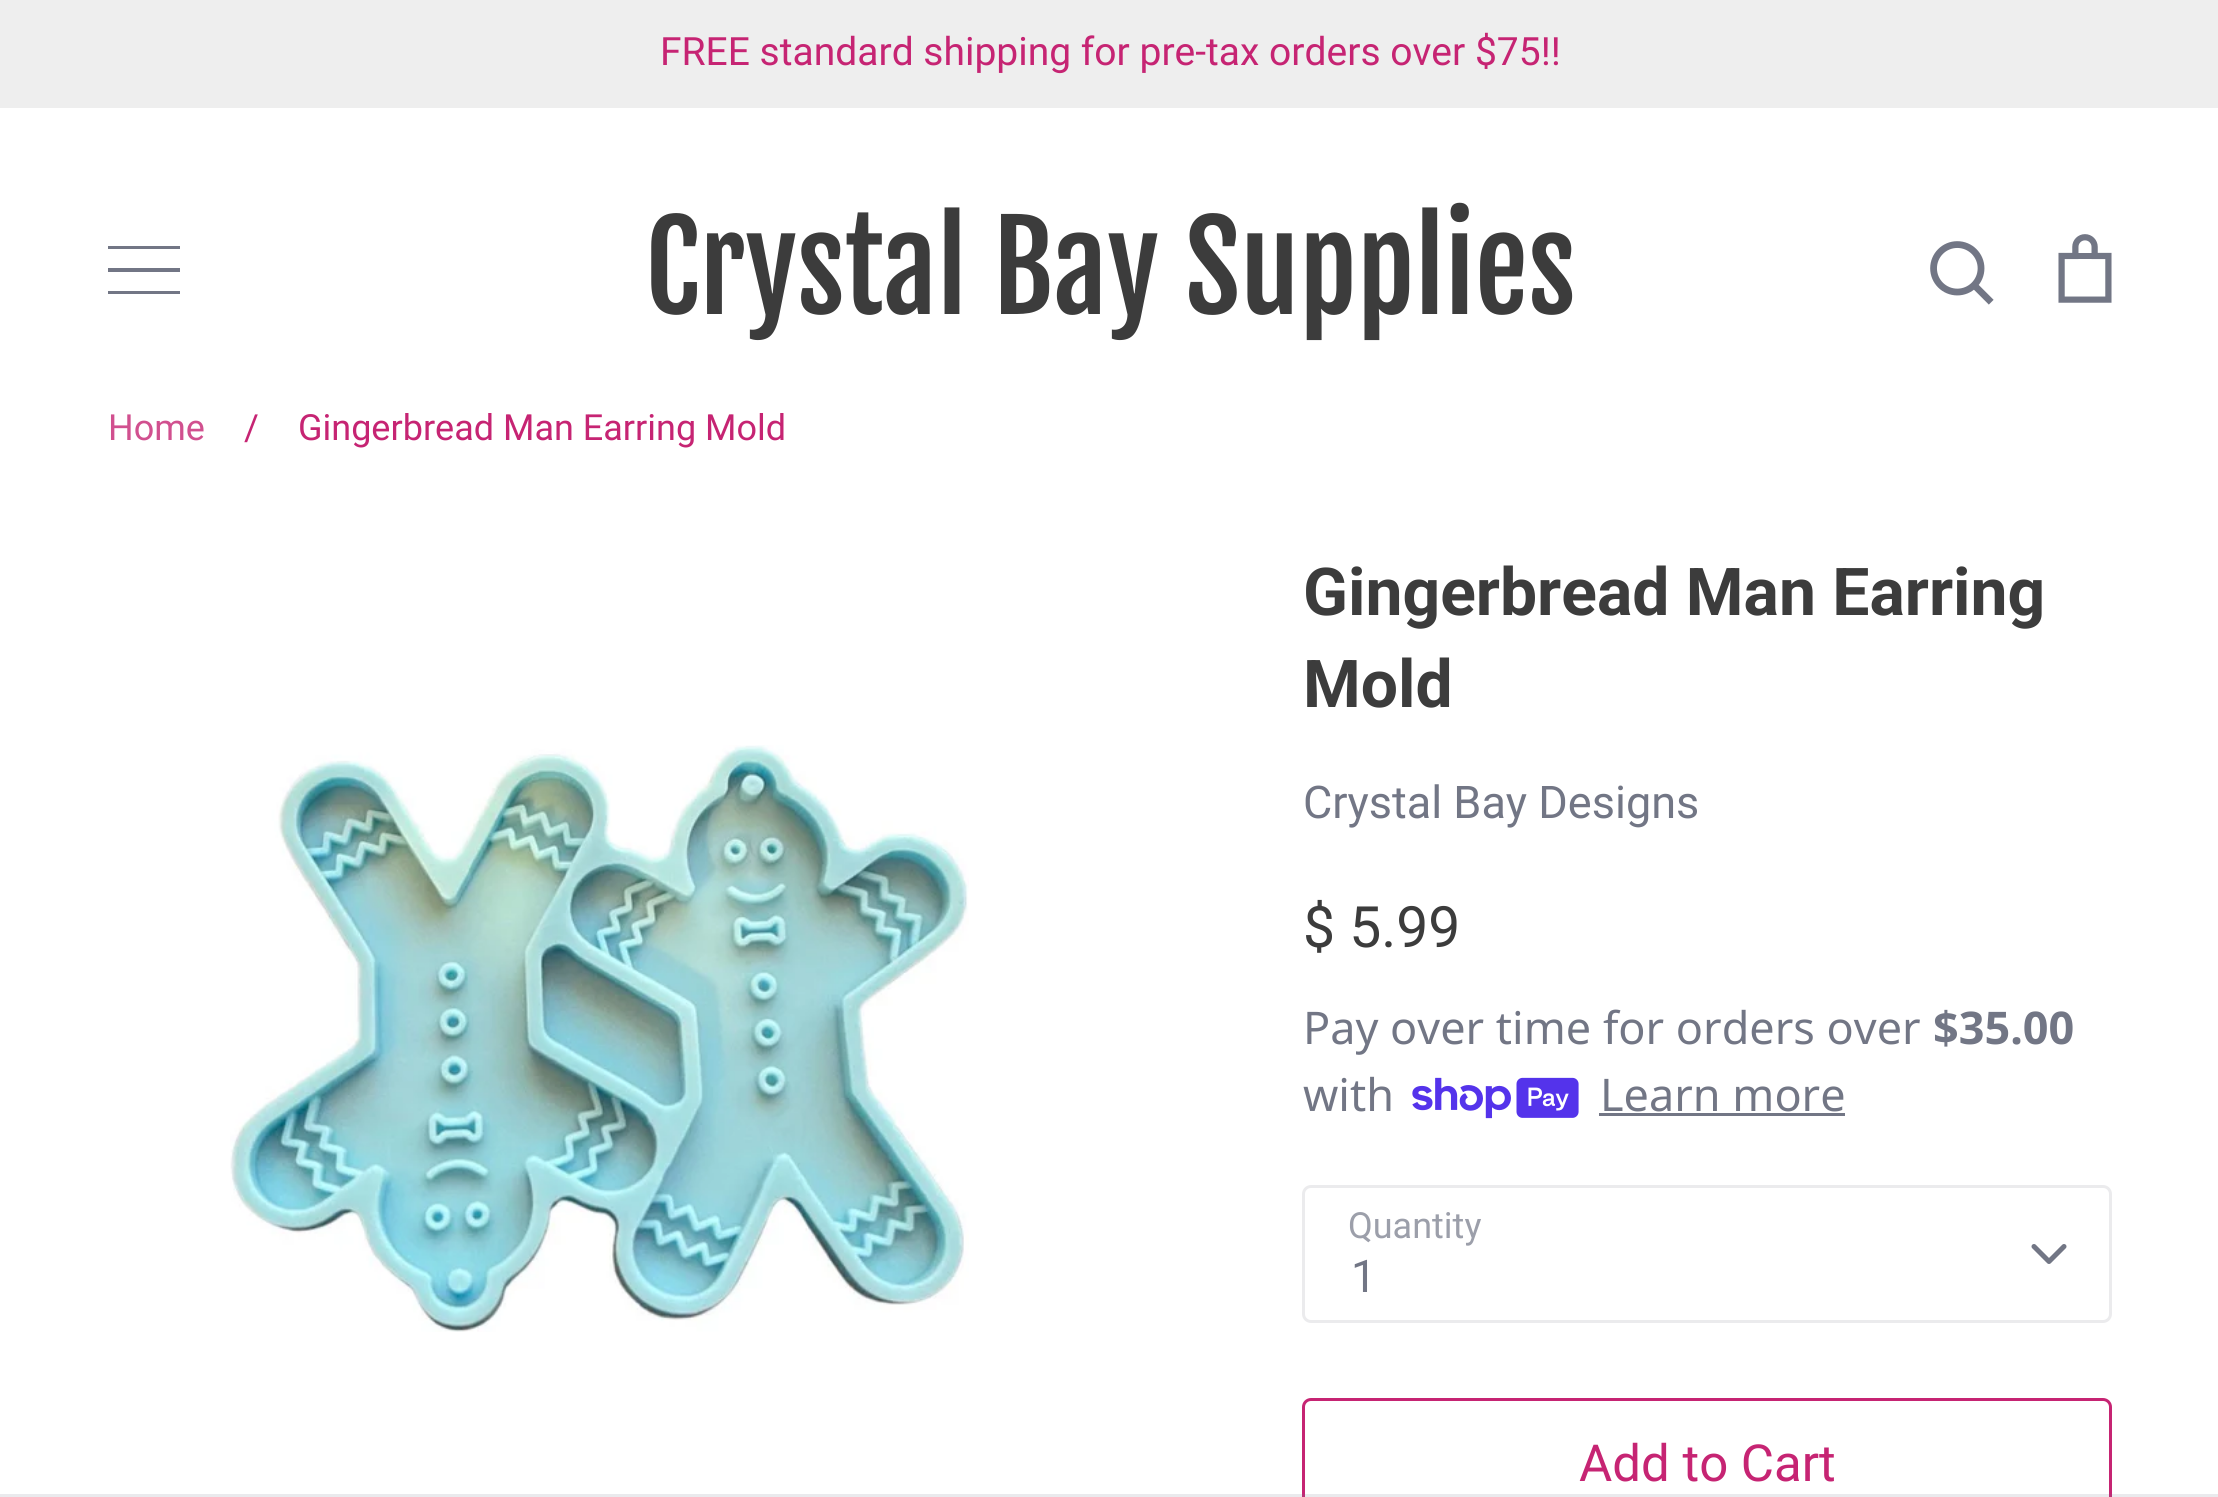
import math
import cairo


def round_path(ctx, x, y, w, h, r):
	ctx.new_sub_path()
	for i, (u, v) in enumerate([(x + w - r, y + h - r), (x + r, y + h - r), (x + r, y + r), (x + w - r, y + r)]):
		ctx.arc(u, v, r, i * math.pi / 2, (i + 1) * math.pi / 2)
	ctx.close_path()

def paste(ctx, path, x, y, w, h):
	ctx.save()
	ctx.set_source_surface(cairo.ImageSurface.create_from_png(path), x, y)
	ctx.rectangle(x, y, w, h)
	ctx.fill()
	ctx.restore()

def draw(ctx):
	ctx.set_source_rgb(1, 1, 1)
	ctx.paint()
	ctx.set_source_rgb(0.933, 0.933, 0.933)
	ctx.rectangle(0, 0, 2218, 108)
	ctx.fill()
	ctx.select_font_face('Roboto')
	ctx.set_font_size(39)
	ctx.set_source_rgb(0.776, 0.141, 0.451)
	ctx.move_to(660, 65)
	ctx.show_text('FREE standard shipping for pre-tax orders over $75!!')
	ctx.set_source_rgb(0.447, 0.463, 0.522)
	ctx.rectangle(108, 246, 72, 3)
	ctx.rectangle(108, 268, 72, 4)
	ctx.rectangle(108, 291, 72, 3)
	ctx.fill()
	ctx.select_font_face('Fjalla One')
	ctx.set_font_size(120)
	ctx.set_source_rgb(0.235, 0.235, 0.235)
	ctx.move_to(645, 314)
	ctx.show_text('Crystal Bay Supplies')
	paste(ctx, 'media/1.png', 1930, 241, 64, 64)
	paste(ctx, 'media/2.png', 2058, 234, 54, 69)
	round_path(ctx, 1303.5, 1399.5, 807, 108, 7.5)
	ctx.set_source_rgb(0.776, 0.141, 0.451)
	ctx.set_line_width(3)
	ctx.stroke()
	ctx.set_source_rgba(0.447, 0.463, 0.522, 0.15)
	ctx.rectangle(0, 1494, 2218, 3)
	ctx.fill()
	ctx.select_font_face('Roboto')
	ctx.set_font_size(36)
	ctx.set_source_rgb(0.82, 0.314, 0.561)
	ctx.move_to(108, 440)
	ctx.show_text('Home')
	ctx.set_source_rgb(0.776, 0.141, 0.451)
	ctx.move_to(244, 440)
	ctx.show_text('/')
	ctx.move_to(298, 440)
	ctx.show_text('Gingerbread Man Earring Mold')
	paste(ctx, 'media/3.png', 230, 745, 739, 587)
	ctx.select_font_face('Roboto', cairo.FONT_SLANT_NORMAL, cairo.FONT_WEIGHT_BOLD)
	ctx.set_font_size(66)
	ctx.set_source_rgb(0.235, 0.235, 0.235)
	ctx.move_to(1303, 615)
	ctx.show_text('Gingerbread Man Earring')
	ctx.move_to(1303, 707)
	ctx.show_text('Mold')
	ctx.select_font_face('Roboto')
	ctx.set_font_size(45)
	ctx.set_source_rgb(0.447, 0.463, 0.522)
	ctx.move_to(1303, 818)
	ctx.show_text('Crystal Bay Designs')
	ctx.set_font_size(57)
	ctx.set_source_rgb(0.235, 0.235, 0.235)
	ctx.move_to(1303, 947)
	ctx.show_text('$ 5.99')
	ctx.select_font_face('Noto Sans')
	ctx.set_font_size(45)
	ctx.set_source_rgb(0.447, 0.463, 0.522)
	ctx.move_to(1303, 1044)
	ctx.show_text('Pay over time for orders over')
	ctx.select_font_face('Noto Sans', cairo.FONT_SLANT_NORMAL, cairo.FONT_WEIGHT_BOLD)
	ctx.move_to(1933, 1044)
	ctx.show_text('$35.00')
	ctx.select_font_face('Noto Sans')
	ctx.move_to(1303, 1111)
	ctx.show_text('with')
	paste(ctx, 'media/4.png', 1412, 1077, 167, 42)
	ctx.move_to(1600, 1111)
	ctx.show_text('Learn more')
	ctx.rectangle(1599, 1113, 246, 3)
	ctx.fill()
	ctx.select_font_face('Roboto')
	ctx.set_font_size(36)
	ctx.set_source_rgb(0.612, 0.624, 0.667)
	ctx.move_to(1348, 1238)
	ctx.show_text('Quantity')
	round_path(ctx, 1303.5, 1186.5, 807, 135, 7.5)
	ctx.set_source_rgb(0.918, 0.918, 0.929)
	ctx.stroke()
	ctx.new_path()
	ctx.move_to(2034, 1246.5)
	ctx.line_to(2049, 1261.5)
	ctx.line_to(2064, 1246.5)
	ctx.set_source_rgb(0.447, 0.463, 0.522)
	ctx.set_line_width(5)
	ctx.set_line_cap(cairo.LINE_CAP_ROUND)
	ctx.set_line_join(cairo.LINE_JOIN_ROUND)
	ctx.stroke()
	ctx.set_font_size(45)
	ctx.move_to(1351, 1292)
	ctx.show_text('1')
	ctx.set_font_size(51)
	ctx.set_source_rgb(0.776, 0.141, 0.451)
	ctx.move_to(1579, 1481)
	ctx.show_text('Add to Cart')


surface = cairo.ImageSurface(cairo.FORMAT_RGB24, 2218, 1497)
ctx = cairo.Context(surface)
options = cairo.FontOptions()
options.set_hint_metrics(cairo.HINT_METRICS_OFF)
options.set_hint_style(cairo.HINT_STYLE_NONE)
ctx.set_font_options(options)
ctx.set_miter_limit(4)
draw(ctx)
surface.write_to_png('image.png')
